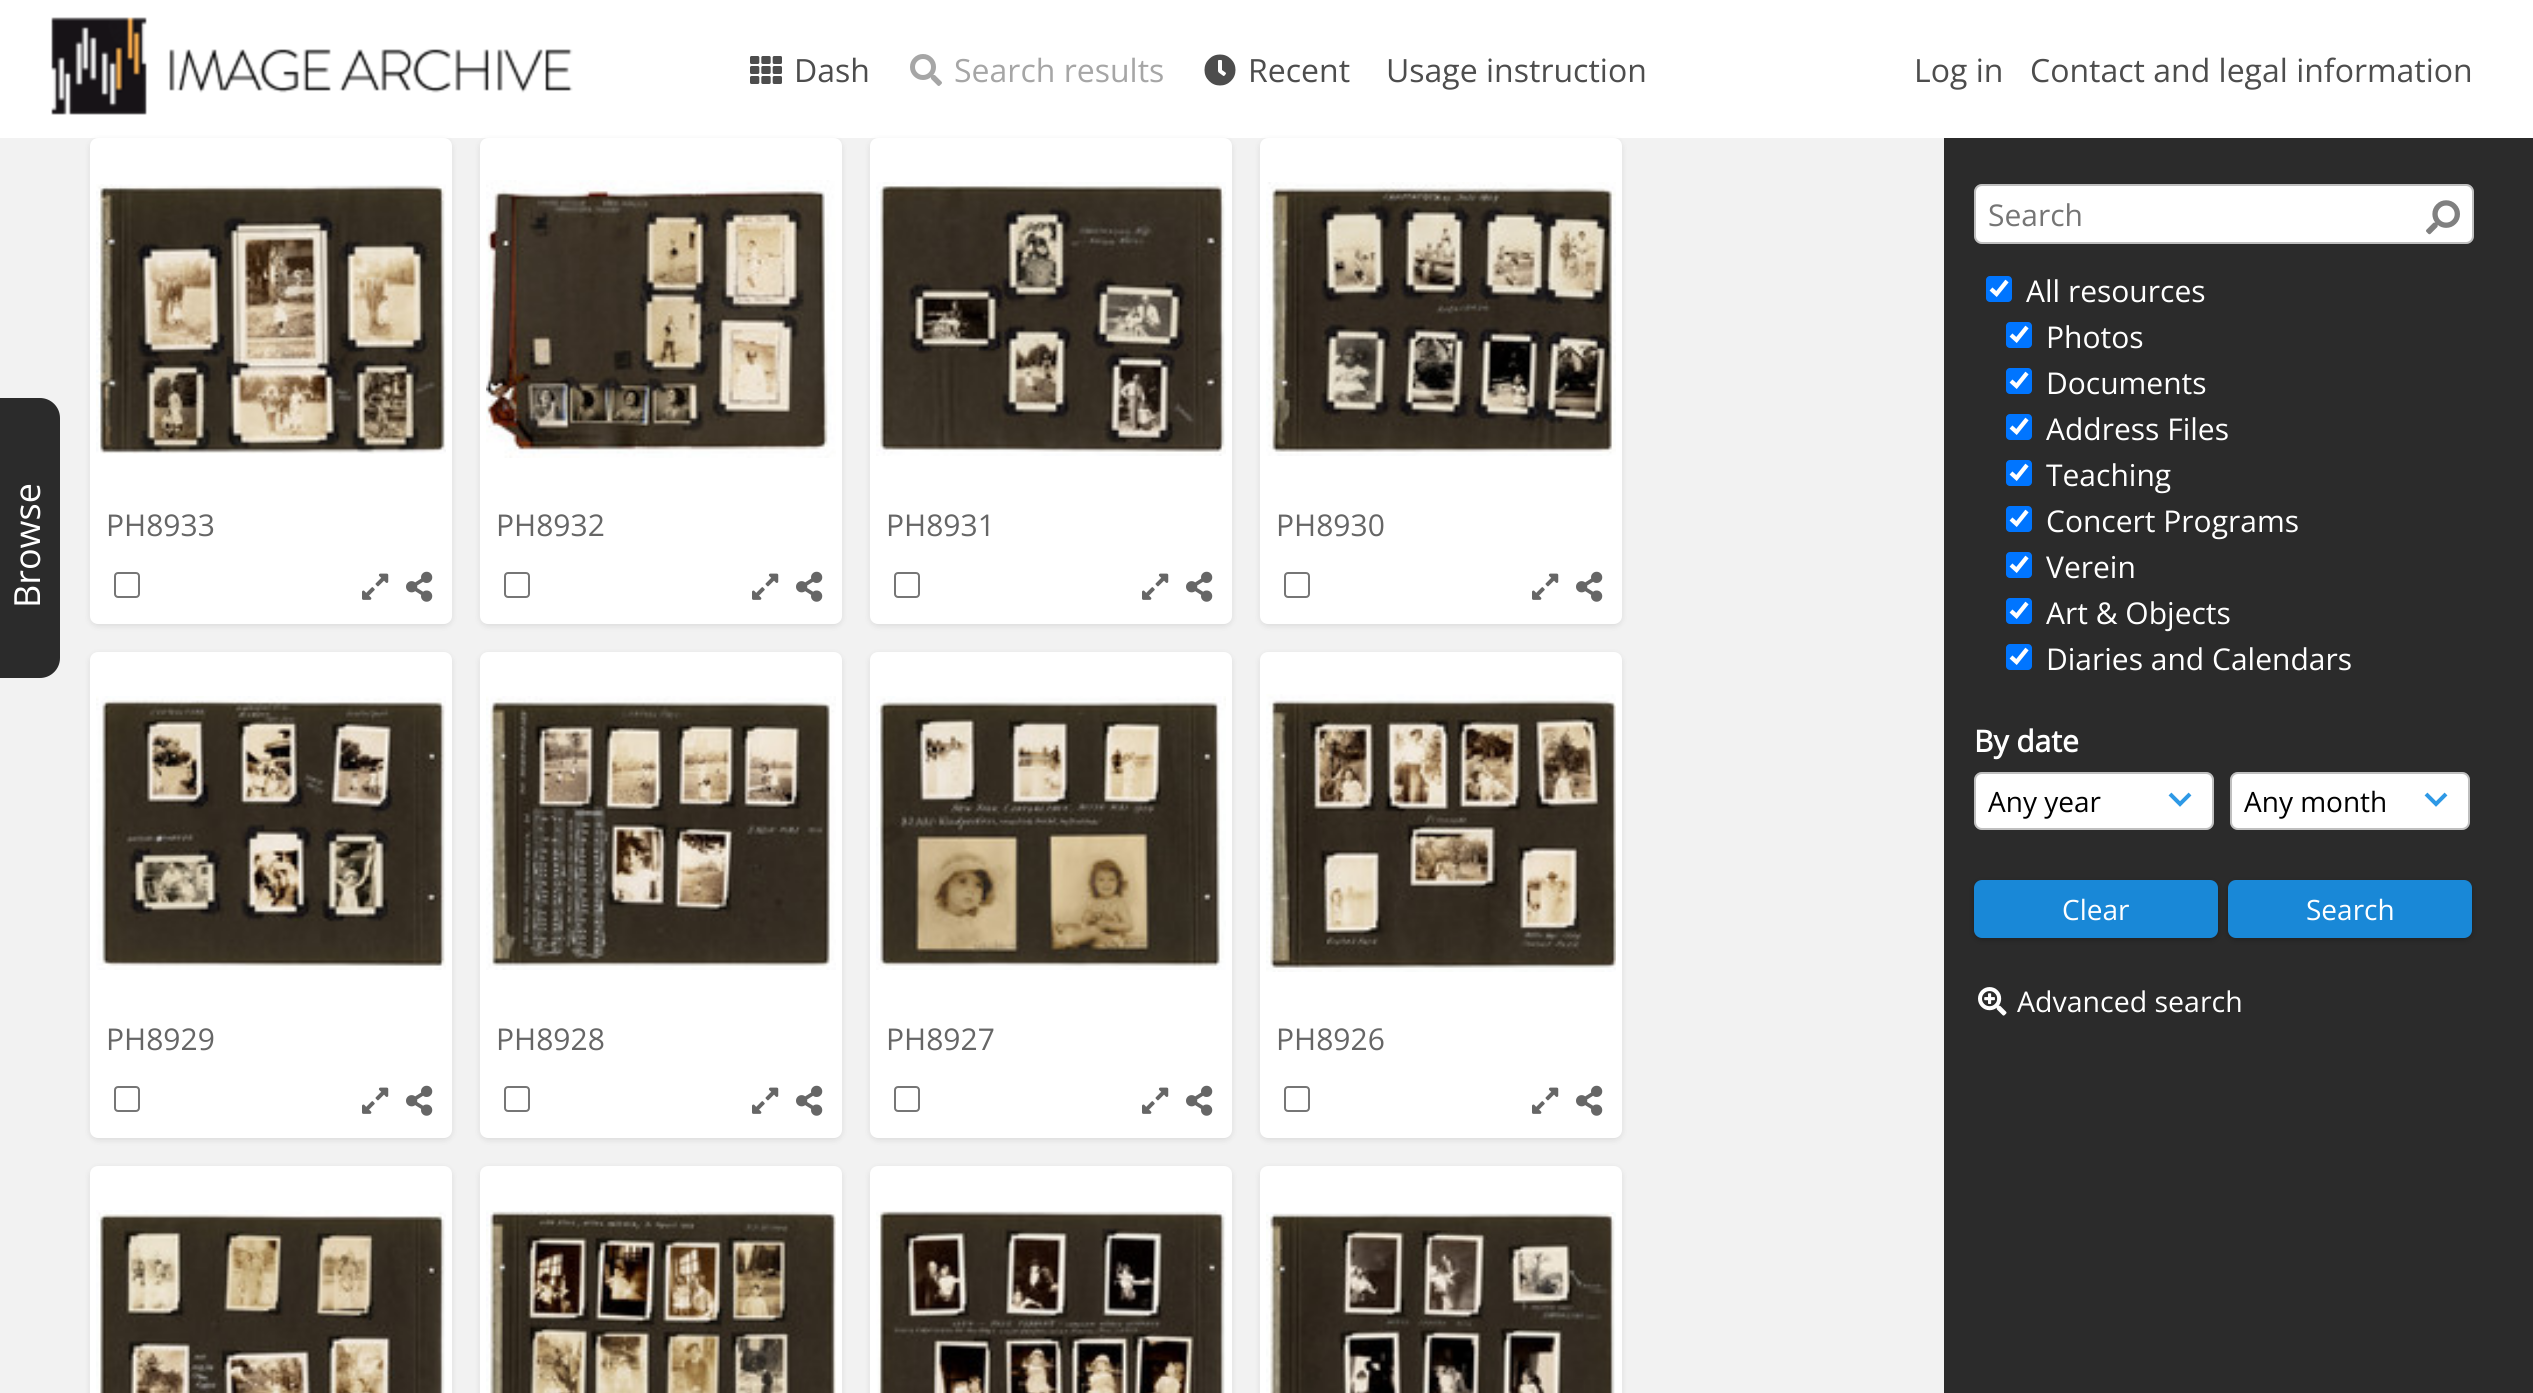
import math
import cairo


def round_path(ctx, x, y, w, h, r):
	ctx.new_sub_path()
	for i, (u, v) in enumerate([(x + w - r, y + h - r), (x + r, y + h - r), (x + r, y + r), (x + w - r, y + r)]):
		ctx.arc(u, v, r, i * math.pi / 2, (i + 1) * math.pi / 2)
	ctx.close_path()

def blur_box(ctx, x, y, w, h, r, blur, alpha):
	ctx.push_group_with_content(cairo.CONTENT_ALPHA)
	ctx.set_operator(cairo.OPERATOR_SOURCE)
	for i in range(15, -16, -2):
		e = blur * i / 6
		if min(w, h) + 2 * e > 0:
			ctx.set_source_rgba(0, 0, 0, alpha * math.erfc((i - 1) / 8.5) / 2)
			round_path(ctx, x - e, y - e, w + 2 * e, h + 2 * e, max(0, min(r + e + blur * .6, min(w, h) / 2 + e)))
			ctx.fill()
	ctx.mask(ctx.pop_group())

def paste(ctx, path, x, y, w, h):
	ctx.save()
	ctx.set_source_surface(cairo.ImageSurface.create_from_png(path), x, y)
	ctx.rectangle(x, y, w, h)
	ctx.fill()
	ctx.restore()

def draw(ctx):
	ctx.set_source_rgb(0.949, 0.949, 0.949)
	ctx.paint()
	ctx.set_source_rgb(1, 1, 1)
	ctx.rectangle(0, 0, 2533, 138)
	ctx.fill()
	paste(ctx, 'media/1.png', 51, 17, 522, 98)
	paste(ctx, 'media/2.png', 750, 56, 32, 28)
	ctx.select_font_face('Open Sans')
	ctx.set_font_size(32)
	ctx.set_source_rgb(0.302, 0.302, 0.302)
	ctx.move_to(794, 82)
	ctx.show_text('Dash')
	paste(ctx, 'media/3.png', 910, 54, 32, 32)
	ctx.set_source_rgb(0.651, 0.651, 0.651)
	ctx.move_to(954, 82)
	ctx.show_text('Search results')
	paste(ctx, 'media/4.png', 1204, 54, 32, 32)
	ctx.set_source_rgb(0.302, 0.302, 0.302)
	for x, y, s in [
		(1248, 82, 'Recent'),
		(1386, 82, 'Usage instruction'),
		(1914, 82, 'Log in'),
		(2030, 82, 'Contact and legal information'),
	]:
		ctx.move_to(x, y)
		ctx.show_text(s)
	ctx.set_source_rgb(0.169, 0.169, 0.169)
	ctx.new_path()
	ctx.move_to(0, 398)
	ctx.line_to(40, 398)
	ctx.curve_to(51, 398, 60, 407, 60, 418)
	ctx.line_to(60, 658)
	ctx.curve_to(60, 669, 51, 678, 40, 678)
	ctx.line_to(0, 678)
	ctx.close_path()
	ctx.fill()
	ctx.set_font_size(36)
	ctx.set_source_rgb(1, 1, 1)
	ctx.save()
	ctx.translate(40, 608)
	ctx.rotate(-90 * math.pi / 180)
	ctx.move_to(0, 0)
	ctx.show_text('Browse')
	ctx.restore()
	ctx.set_source_rgb(0, 0, 0)
	blur_box(ctx, 90, 140, 362, 486, 8, 3, 0.1)
	ctx.set_source_rgb(1, 1, 1)
	round_path(ctx, 90, 138, 362, 486, 8)
	ctx.fill()
	paste(ctx, 'media/5.png', 96, 184, 350, 270)
	ctx.set_font_size(30)
	ctx.set_source_rgb(0.4, 0.4, 0.4)
	ctx.move_to(106, 536)
	ctx.show_text('PH8933')
	round_path(ctx, 115, 573, 24, 24, 3)
	ctx.set_source_rgb(0.463, 0.463, 0.463)
	ctx.stroke()
	paste(ctx, 'media/6.png', 362, 573, 27, 27)
	paste(ctx, 'media/7.png', 406, 571, 27, 31)
	ctx.set_source_rgb(0, 0, 0)
	blur_box(ctx, 480, 140, 362, 486, 8, 3, 0.1)
	ctx.set_source_rgb(1, 1, 1)
	round_path(ctx, 480, 138, 362, 486, 8)
	ctx.fill()
	paste(ctx, 'media/8.png', 486, 180, 350, 278)
	ctx.set_source_rgb(0.4, 0.4, 0.4)
	ctx.move_to(496, 536)
	ctx.show_text('PH8932')
	round_path(ctx, 505, 573, 24, 24, 3)
	ctx.set_source_rgb(0.463, 0.463, 0.463)
	ctx.stroke()
	paste(ctx, 'media/6.png', 752, 573, 27, 27)
	paste(ctx, 'media/7.png', 796, 571, 27, 31)
	ctx.set_source_rgb(0, 0, 0)
	blur_box(ctx, 870, 140, 362, 486, 8, 3, 0.1)
	ctx.set_source_rgb(1, 1, 1)
	round_path(ctx, 870, 138, 362, 486, 8)
	ctx.fill()
	paste(ctx, 'media/9.png', 876, 182, 350, 274)
	ctx.set_source_rgb(0.4, 0.4, 0.4)
	ctx.move_to(886, 536)
	ctx.show_text('PH8931')
	round_path(ctx, 895, 573, 24, 24, 3)
	ctx.set_source_rgb(0.463, 0.463, 0.463)
	ctx.stroke()
	paste(ctx, 'media/6.png', 1142, 573, 27, 27)
	paste(ctx, 'media/7.png', 1186, 571, 27, 31)
	ctx.set_source_rgb(0, 0, 0)
	blur_box(ctx, 1260, 140, 362, 486, 8, 3, 0.1)
	ctx.set_source_rgb(1, 1, 1)
	round_path(ctx, 1260, 138, 362, 486, 8)
	ctx.fill()
	paste(ctx, 'media/10.png', 1266, 182, 350, 274)
	ctx.set_source_rgb(0.4, 0.4, 0.4)
	ctx.move_to(1276, 536)
	ctx.show_text('PH8930')
	round_path(ctx, 1285, 573, 24, 24, 3)
	ctx.set_source_rgb(0.463, 0.463, 0.463)
	ctx.stroke()
	paste(ctx, 'media/6.png', 1532, 573, 27, 27)
	paste(ctx, 'media/7.png', 1576, 571, 27, 31)
	ctx.set_source_rgb(0, 0, 0)
	blur_box(ctx, 90, 654, 362, 486, 8, 3, 0.1)
	ctx.set_source_rgb(1, 1, 1)
	round_path(ctx, 90, 652, 362, 486, 8)
	ctx.fill()
	paste(ctx, 'media/11.png', 96, 696, 350, 274)
	ctx.set_source_rgb(0.4, 0.4, 0.4)
	ctx.move_to(106, 1050)
	ctx.show_text('PH8929')
	round_path(ctx, 115, 1087, 24, 24, 3)
	ctx.set_source_rgb(0.463, 0.463, 0.463)
	ctx.stroke()
	paste(ctx, 'media/6.png', 362, 1087, 27, 27)
	paste(ctx, 'media/7.png', 406, 1085, 27, 31)
	ctx.set_source_rgb(0, 0, 0)
	blur_box(ctx, 480, 654, 362, 486, 8, 3, 0.1)
	ctx.set_source_rgb(1, 1, 1)
	round_path(ctx, 480, 652, 362, 486, 8)
	ctx.fill()
	paste(ctx, 'media/12.png', 486, 696, 350, 274)
	ctx.set_source_rgb(0.4, 0.4, 0.4)
	ctx.move_to(496, 1050)
	ctx.show_text('PH8928')
	round_path(ctx, 505, 1087, 24, 24, 3)
	ctx.set_source_rgb(0.463, 0.463, 0.463)
	ctx.stroke()
	paste(ctx, 'media/6.png', 752, 1087, 27, 27)
	paste(ctx, 'media/7.png', 796, 1085, 27, 31)
	ctx.set_source_rgb(0, 0, 0)
	blur_box(ctx, 870, 654, 362, 486, 8, 3, 0.1)
	ctx.set_source_rgb(1, 1, 1)
	round_path(ctx, 870, 652, 362, 486, 8)
	ctx.fill()
	paste(ctx, 'media/13.png', 876, 696, 350, 274)
	ctx.set_source_rgb(0.4, 0.4, 0.4)
	ctx.move_to(886, 1050)
	ctx.show_text('PH8927')
	round_path(ctx, 895, 1087, 24, 24, 3)
	ctx.set_source_rgb(0.463, 0.463, 0.463)
	ctx.stroke()
	paste(ctx, 'media/6.png', 1142, 1087, 27, 27)
	paste(ctx, 'media/7.png', 1186, 1085, 27, 31)
	ctx.set_source_rgb(0, 0, 0)
	blur_box(ctx, 1260, 654, 362, 486, 8, 3, 0.1)
	ctx.set_source_rgb(1, 1, 1)
	round_path(ctx, 1260, 652, 362, 486, 8)
	ctx.fill()
	paste(ctx, 'media/14.png', 1266, 694, 350, 278)
	ctx.set_source_rgb(0.4, 0.4, 0.4)
	ctx.move_to(1276, 1050)
	ctx.show_text('PH8926')
	round_path(ctx, 1285, 1087, 24, 24, 3)
	ctx.set_source_rgb(0.463, 0.463, 0.463)
	ctx.stroke()
	paste(ctx, 'media/6.png', 1532, 1087, 27, 27)
	paste(ctx, 'media/7.png', 1576, 1085, 27, 31)
	ctx.set_source_rgb(0, 0, 0)
	blur_box(ctx, 90, 1168, 362, 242, 8, 3, 0.1)
	ctx.set_source_rgb(1, 1, 1)
	ctx.new_path()
	ctx.move_to(98, 1166)
	ctx.line_to(444, 1166)
	ctx.curve_to(448.5, 1166, 452, 1169.5, 452, 1174)
	ctx.line_to(452, 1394)
	ctx.line_to(90, 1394)
	ctx.line_to(90, 1174)
	ctx.curve_to(90, 1169.5, 93.5, 1166, 98, 1166)
	ctx.close_path()
	ctx.fill()
	paste(ctx, 'media/15.png', 96, 1210, 350, 183)
	ctx.set_source_rgb(0, 0, 0)
	blur_box(ctx, 480, 1168, 362, 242, 8, 3, 0.1)
	ctx.set_source_rgb(1, 1, 1)
	ctx.new_path()
	ctx.move_to(488, 1166)
	ctx.line_to(834, 1166)
	ctx.curve_to(838.5, 1166, 842, 1169.5, 842, 1174)
	ctx.line_to(842, 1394)
	ctx.line_to(480, 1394)
	ctx.line_to(480, 1174)
	ctx.curve_to(480, 1169.5, 483.5, 1166, 488, 1166)
	ctx.close_path()
	ctx.fill()
	paste(ctx, 'media/16.png', 486, 1210, 350, 183)
	ctx.set_source_rgb(0, 0, 0)
	blur_box(ctx, 870, 1168, 362, 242, 8, 3, 0.1)
	ctx.set_source_rgb(1, 1, 1)
	ctx.new_path()
	ctx.move_to(878, 1166)
	ctx.line_to(1224, 1166)
	ctx.curve_to(1228.5, 1166, 1232, 1169.5, 1232, 1174)
	ctx.line_to(1232, 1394)
	ctx.line_to(870, 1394)
	ctx.line_to(870, 1174)
	ctx.curve_to(870, 1169.5, 873.5, 1166, 878, 1166)
	ctx.close_path()
	ctx.fill()
	paste(ctx, 'media/17.png', 876, 1210, 350, 183)
	ctx.set_source_rgb(0, 0, 0)
	blur_box(ctx, 1260, 1168, 362, 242, 8, 3, 0.1)
	ctx.set_source_rgb(1, 1, 1)
	ctx.new_path()
	ctx.move_to(1268, 1166)
	ctx.line_to(1614, 1166)
	ctx.curve_to(1618.5, 1166, 1622, 1169.5, 1622, 1174)
	ctx.line_to(1622, 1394)
	ctx.line_to(1260, 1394)
	ctx.line_to(1260, 1174)
	ctx.curve_to(1260, 1169.5, 1263.5, 1166, 1268, 1166)
	ctx.close_path()
	ctx.fill()
	paste(ctx, 'media/18.png', 1266, 1212, 350, 181)
	ctx.set_source_rgb(0.169, 0.169, 0.169)
	ctx.rectangle(1944, 138, 589, 1255)
	ctx.fill()
	ctx.set_source_rgb(1, 1, 1)
	round_path(ctx, 1974, 184, 500, 60, 8)
	ctx.fill()
	round_path(ctx, 1975, 185, 498, 58, 7)
	ctx.set_source_rgba(0, 0, 0, 0.25)
	ctx.stroke()
	ctx.set_source_rgb(0.459, 0.459, 0.459)
	ctx.move_to(1988, 226)
	ctx.show_text('Search')
	paste(ctx, 'media/19.png', 2426, 200, 34, 35)
	ctx.set_source_rgb(0, 0.459, 1)
	round_path(ctx, 1986, 276, 26, 26, 4)
	ctx.fill()
	ctx.new_path()
	ctx.move_to(1991, 289)
	ctx.line_to(1996.5, 294)
	ctx.line_to(2007, 281)
	ctx.set_source_rgb(1, 1, 1)
	ctx.set_line_width(4.2)
	ctx.stroke()
	ctx.move_to(2026, 302)
	ctx.show_text('All resources')
	ctx.set_source_rgb(0, 0.459, 1)
	round_path(ctx, 2006, 322, 26, 26, 4)
	ctx.fill()
	ctx.new_path()
	ctx.move_to(2011, 335)
	ctx.line_to(2016.5, 340)
	ctx.line_to(2027, 327)
	ctx.set_source_rgb(1, 1, 1)
	ctx.stroke()
	ctx.move_to(2046, 348)
	ctx.show_text('Photos')
	ctx.set_source_rgb(0, 0.459, 1)
	round_path(ctx, 2006, 368, 26, 26, 4)
	ctx.fill()
	ctx.new_path()
	ctx.move_to(2011, 381)
	ctx.line_to(2016.5, 386)
	ctx.line_to(2027, 373)
	ctx.set_source_rgb(1, 1, 1)
	ctx.stroke()
	ctx.move_to(2046, 394)
	ctx.show_text('Documents')
	ctx.set_source_rgb(0, 0.459, 1)
	round_path(ctx, 2006, 414, 26, 26, 4)
	ctx.fill()
	ctx.new_path()
	ctx.move_to(2011, 427)
	ctx.line_to(2016.5, 432)
	ctx.line_to(2027, 419)
	ctx.set_source_rgb(1, 1, 1)
	ctx.stroke()
	ctx.move_to(2046, 440)
	ctx.show_text('Address Files')
	ctx.set_source_rgb(0, 0.459, 1)
	round_path(ctx, 2006, 460, 26, 26, 4)
	ctx.fill()
	ctx.new_path()
	ctx.move_to(2011, 473)
	ctx.line_to(2016.5, 478)
	ctx.line_to(2027, 465)
	ctx.set_source_rgb(1, 1, 1)
	ctx.stroke()
	ctx.move_to(2046, 486)
	ctx.show_text('Teaching')
	ctx.set_source_rgb(0, 0.459, 1)
	round_path(ctx, 2006, 506, 26, 26, 4)
	ctx.fill()
	ctx.new_path()
	ctx.move_to(2011, 519)
	ctx.line_to(2016.5, 524)
	ctx.line_to(2027, 511)
	ctx.set_source_rgb(1, 1, 1)
	ctx.stroke()
	ctx.move_to(2046, 532)
	ctx.show_text('Concert Programs')
	ctx.set_source_rgb(0, 0.459, 1)
	round_path(ctx, 2006, 552, 26, 26, 4)
	ctx.fill()
	ctx.new_path()
	ctx.move_to(2011, 565)
	ctx.line_to(2016.5, 570)
	ctx.line_to(2027, 557)
	ctx.set_source_rgb(1, 1, 1)
	ctx.stroke()
	ctx.move_to(2046, 578)
	ctx.show_text('Verein')
	ctx.set_source_rgb(0, 0.459, 1)
	round_path(ctx, 2006, 598, 26, 26, 4)
	ctx.fill()
	ctx.new_path()
	ctx.move_to(2011, 611)
	ctx.line_to(2016.5, 616)
	ctx.line_to(2027, 603)
	ctx.set_source_rgb(1, 1, 1)
	ctx.stroke()
	ctx.move_to(2046, 624)
	ctx.show_text('Art & Objects')
	ctx.set_source_rgb(0, 0.459, 1)
	round_path(ctx, 2006, 644, 26, 26, 4)
	ctx.fill()
	ctx.new_path()
	ctx.move_to(2011, 657)
	ctx.line_to(2016.5, 662)
	ctx.line_to(2027, 649)
	ctx.set_source_rgb(1, 1, 1)
	ctx.stroke()
	ctx.move_to(2046, 670)
	ctx.show_text('Diaries and Calendars')
	ctx.select_font_face('Open Sans', cairo.FONT_SLANT_NORMAL, cairo.FONT_WEIGHT_BOLD)
	ctx.move_to(1974, 752)
	ctx.show_text('By date')
	round_path(ctx, 1974, 772, 240, 58, 8)
	ctx.fill()
	ctx.new_path()
	ctx.move_to(2190, 794)
	ctx.line_to(2180, 804)
	ctx.line_to(2170, 794)
	ctx.set_source_rgb(0.18, 0.6, 0.902)
	ctx.set_line_width(4)
	ctx.stroke()
	round_path(ctx, 1975, 773, 238, 56, 7)
	ctx.set_source_rgba(0, 0, 0, 0.25)
	ctx.set_line_width(2)
	ctx.stroke()
	ctx.select_font_face('Open Sans')
	ctx.set_font_size(28)
	ctx.set_source_rgb(0, 0, 0)
	ctx.move_to(1988, 812)
	ctx.show_text('Any year')
	ctx.set_source_rgb(1, 1, 1)
	round_path(ctx, 2230, 772, 240, 58, 8)
	ctx.fill()
	ctx.new_path()
	ctx.move_to(2446, 794)
	ctx.line_to(2436, 804)
	ctx.line_to(2426, 794)
	ctx.set_source_rgb(0.18, 0.6, 0.902)
	ctx.set_line_width(4)
	ctx.stroke()
	round_path(ctx, 2231, 773, 238, 56, 7)
	ctx.set_source_rgba(0, 0, 0, 0.25)
	ctx.set_line_width(2)
	ctx.stroke()
	ctx.set_source_rgb(0, 0, 0)
	ctx.move_to(2244, 812)
	ctx.show_text('Any month')
	ctx.set_source_rgb(0, 0, 0)
	blur_box(ctx, 1974, 882, 244, 58, 8, 3, 0.25)
	ctx.set_source_rgb(0.098, 0.533, 0.843)
	round_path(ctx, 1974, 880, 244, 58, 8)
	ctx.fill()
	ctx.set_source_rgb(1, 1, 1)
	ctx.move_to(2062, 920)
	ctx.show_text('Clear')
	ctx.set_source_rgb(0, 0, 0)
	blur_box(ctx, 2228, 882, 244, 58, 8, 3, 0.25)
	ctx.set_source_rgb(0.098, 0.533, 0.843)
	round_path(ctx, 2228, 880, 244, 58, 8)
	ctx.fill()
	ctx.set_source_rgb(1, 1, 1)
	ctx.move_to(2306, 920)
	ctx.show_text('Search')
	paste(ctx, 'media/20.png', 1978, 987, 29, 29)
	ctx.set_font_size(28.5)
	ctx.move_to(2017, 1012)
	ctx.show_text('Advanced search')


surface = cairo.ImageSurface(cairo.FORMAT_RGB24, 2533, 1393)
ctx = cairo.Context(surface)
options = cairo.FontOptions()
options.set_hint_metrics(cairo.HINT_METRICS_OFF)
options.set_hint_style(cairo.HINT_STYLE_NONE)
ctx.set_font_options(options)
ctx.set_miter_limit(4)
draw(ctx)
surface.write_to_png('image.png')
